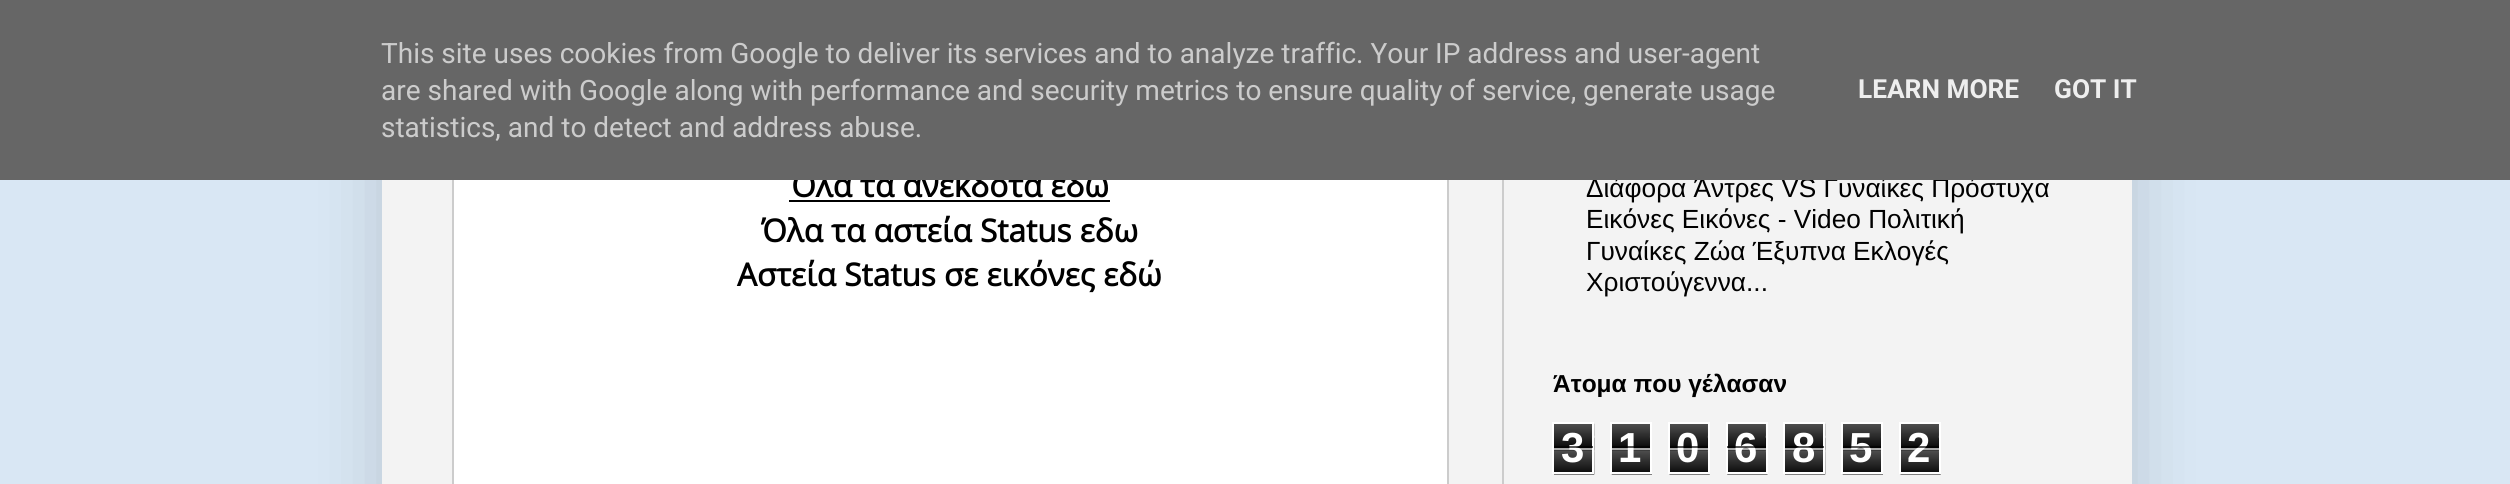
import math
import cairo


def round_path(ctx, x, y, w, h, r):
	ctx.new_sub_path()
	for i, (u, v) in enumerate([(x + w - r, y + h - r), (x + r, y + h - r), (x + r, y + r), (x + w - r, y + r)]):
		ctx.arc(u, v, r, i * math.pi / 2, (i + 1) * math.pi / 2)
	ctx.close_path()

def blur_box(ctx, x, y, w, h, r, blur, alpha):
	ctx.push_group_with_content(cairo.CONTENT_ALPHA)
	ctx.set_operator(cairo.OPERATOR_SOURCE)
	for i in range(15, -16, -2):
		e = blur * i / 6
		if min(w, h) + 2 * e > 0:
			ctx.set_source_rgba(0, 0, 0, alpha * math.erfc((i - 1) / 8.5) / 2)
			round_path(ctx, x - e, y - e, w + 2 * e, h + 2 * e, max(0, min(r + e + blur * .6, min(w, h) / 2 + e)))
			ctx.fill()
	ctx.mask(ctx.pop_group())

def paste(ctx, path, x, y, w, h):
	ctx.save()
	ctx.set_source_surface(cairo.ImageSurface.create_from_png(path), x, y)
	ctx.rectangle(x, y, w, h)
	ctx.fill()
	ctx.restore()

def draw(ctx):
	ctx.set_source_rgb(0.851, 0.906, 0.957)
	ctx.paint()
	ctx.set_source_rgb(0, 0, 0)
	blur_box(ctx, 382, -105, 1750, 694, 0, 35, 0.15)
	ctx.set_source_rgb(0.953, 0.953, 0.953)
	ctx.rectangle(382, 180, 1750, 304)
	ctx.fill()
	ctx.set_source_rgb(1, 1, 1)
	ctx.rectangle(454, 180, 993, 304)
	ctx.fill()
	ctx.rectangle(453, -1, 995, 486)
	ctx.set_source_rgb(0.8, 0.8, 0.8)
	ctx.stroke()
	ctx.select_font_face('Open Sans', cairo.FONT_SLANT_NORMAL, cairo.FONT_WEIGHT_BOLD)
	ctx.set_font_size(31.5)
	ctx.set_source_rgb(0, 0, 0)
	ctx.move_to(790, 197)
	ctx.show_text('Όλα τα ανέκδοτα εδώ')
	ctx.select_font_face('Liberation Sans')
	ctx.set_font_size(26.25)
	ctx.move_to(1586, 197)
	ctx.show_text('Διάφορα Άντρες VS Γυναίκες Πρόστυχα')
	ctx.set_source_rgb(0.4, 0.4, 0.4)
	ctx.rectangle(0, 0, 2510, 180)
	ctx.fill()
	ctx.select_font_face('Roboto')
	ctx.set_font_size(28)
	ctx.set_source_rgb(0.8, 0.8, 0.8)
	for x, y, s in [
		(381, 63, 'This site uses cookies from Google to deliver its services and to analyze traffic. Your IP address and user-agent'),
		(381, 100, 'are shared with Google along with performance and security metrics to ensure quality of service, generate usage'),
		(381, 137, 'statistics, and to detect and address abuse.'),
	]:
		ctx.move_to(x, y)
		ctx.show_text(s)
	ctx.select_font_face('Roboto', cairo.FONT_SLANT_NORMAL, cairo.FONT_WEIGHT_BOLD)
	ctx.set_font_size(26.25)
	ctx.set_source_rgb(0.933, 0.933, 0.933)
	ctx.move_to(1858, 98)
	ctx.show_text('LEARN MORE')
	ctx.move_to(2054, 98)
	ctx.show_text('GOT IT')
	ctx.set_source_rgb(0, 0, 0)
	ctx.rectangle(789, 200, 321, 2)
	ctx.fill()
	ctx.select_font_face('Open Sans', cairo.FONT_SLANT_NORMAL, cairo.FONT_WEIGHT_BOLD)
	ctx.set_font_size(31.5)
	ctx.move_to(761, 242)
	ctx.show_text('Όλα τα αστεία Status εδω')
	ctx.move_to(737, 286)
	ctx.show_text('Αστεία Status σε εικόνες εδώ')
	ctx.select_font_face('Liberation Sans')
	ctx.set_font_size(26.25)
	for x, y, s in [
		(1586, 228, 'Εικόνες Εικόνες - Video Πολιτική'),
		(1586, 260, 'Γυναίκες Ζώα Έξυπνα Εκλογές'),
		(1586, 291, 'Χριστούγεννα...'),
	]:
		ctx.move_to(x, y)
		ctx.show_text(s)
	ctx.select_font_face('Liberation Sans', cairo.FONT_SLANT_NORMAL, cairo.FONT_WEIGHT_BOLD)
	ctx.set_font_size(24.5)
	ctx.move_to(1553, 392)
	ctx.show_text('Άτομα που γέλασαν')
	paste(ctx, 'media/1.png', 1554, 423, 41, 52)
	ctx.rectangle(1553, 423, 40, 50)
	ctx.set_source_rgb(1, 1, 1)
	ctx.stroke()
	ctx.set_font_size(42)
	ctx.move_to(1561, 462)
	ctx.show_text('3')
	ctx.set_source_rgba(0, 0, 0, 0.65)
	ctx.rectangle(1554, 446, 39, 2)
	ctx.fill()
	ctx.set_source_rgba(1, 1, 1, 0.65)
	ctx.rectangle(1554, 448, 39, 2)
	ctx.fill()
	paste(ctx, 'media/2.png', 1611, 424, 41, 51)
	ctx.rectangle(1611, 423, 40, 50)
	ctx.set_source_rgb(1, 1, 1)
	ctx.stroke()
	ctx.move_to(1618, 462)
	ctx.show_text('1')
	ctx.set_source_rgba(0, 0, 0, 0.65)
	ctx.rectangle(1612, 446, 38, 2)
	ctx.fill()
	ctx.set_source_rgba(1, 1, 1, 0.65)
	ctx.rectangle(1612, 448, 38, 2)
	ctx.fill()
	paste(ctx, 'media/3.png', 1669, 424, 41, 51)
	ctx.rectangle(1669, 423, 40, 50)
	ctx.set_source_rgb(1, 1, 1)
	ctx.stroke()
	ctx.move_to(1676, 462)
	ctx.show_text('0')
	ctx.set_source_rgba(0, 0, 0, 0.65)
	ctx.rectangle(1670, 446, 38, 2)
	ctx.fill()
	ctx.set_source_rgba(1, 1, 1, 0.65)
	ctx.rectangle(1670, 448, 38, 2)
	ctx.fill()
	paste(ctx, 'media/4.png', 1727, 424, 41, 51)
	ctx.rectangle(1727, 423, 40, 50)
	ctx.set_source_rgb(1, 1, 1)
	ctx.stroke()
	ctx.move_to(1734, 462)
	ctx.show_text('6')
	ctx.set_source_rgba(0, 0, 0, 0.65)
	ctx.rectangle(1727, 446, 39, 2)
	ctx.fill()
	ctx.set_source_rgba(1, 1, 1, 0.65)
	ctx.rectangle(1727, 448, 39, 2)
	ctx.fill()
	paste(ctx, 'media/5.png', 1785, 423, 41, 52)
	ctx.rectangle(1784, 423, 40, 50)
	ctx.set_source_rgb(1, 1, 1)
	ctx.stroke()
	ctx.move_to(1792, 462)
	ctx.show_text('8')
	ctx.set_source_rgba(0, 0, 0, 0.65)
	ctx.rectangle(1785, 446, 39, 2)
	ctx.fill()
	ctx.set_source_rgba(1, 1, 1, 0.65)
	ctx.rectangle(1785, 448, 39, 2)
	ctx.fill()
	paste(ctx, 'media/2.png', 1842, 424, 41, 51)
	ctx.rectangle(1842, 423, 40, 50)
	ctx.set_source_rgb(1, 1, 1)
	ctx.stroke()
	ctx.move_to(1849, 462)
	ctx.show_text('5')
	ctx.set_source_rgba(0, 0, 0, 0.65)
	ctx.rectangle(1843, 446, 38, 2)
	ctx.fill()
	ctx.set_source_rgba(1, 1, 1, 0.65)
	ctx.rectangle(1843, 448, 38, 2)
	ctx.fill()
	paste(ctx, 'media/3.png', 1900, 424, 41, 51)
	ctx.rectangle(1900, 423, 40, 50)
	ctx.set_source_rgb(1, 1, 1)
	ctx.stroke()
	ctx.move_to(1907, 462)
	ctx.show_text('2')
	ctx.set_source_rgba(0, 0, 0, 0.65)
	ctx.rectangle(1901, 446, 38, 2)
	ctx.fill()
	ctx.set_source_rgba(1, 1, 1, 0.65)
	ctx.rectangle(1901, 448, 38, 2)
	ctx.fill()
	ctx.set_source_rgb(0.8, 0.8, 0.8)
	ctx.rectangle(1502, 180, 2, 304)
	ctx.fill()


surface = cairo.ImageSurface(cairo.FORMAT_RGB24, 2510, 484)
ctx = cairo.Context(surface)
options = cairo.FontOptions()
options.set_hint_metrics(cairo.HINT_METRICS_OFF)
options.set_hint_style(cairo.HINT_STYLE_NONE)
ctx.set_font_options(options)
ctx.set_miter_limit(4)
draw(ctx)
surface.write_to_png('image.png')
